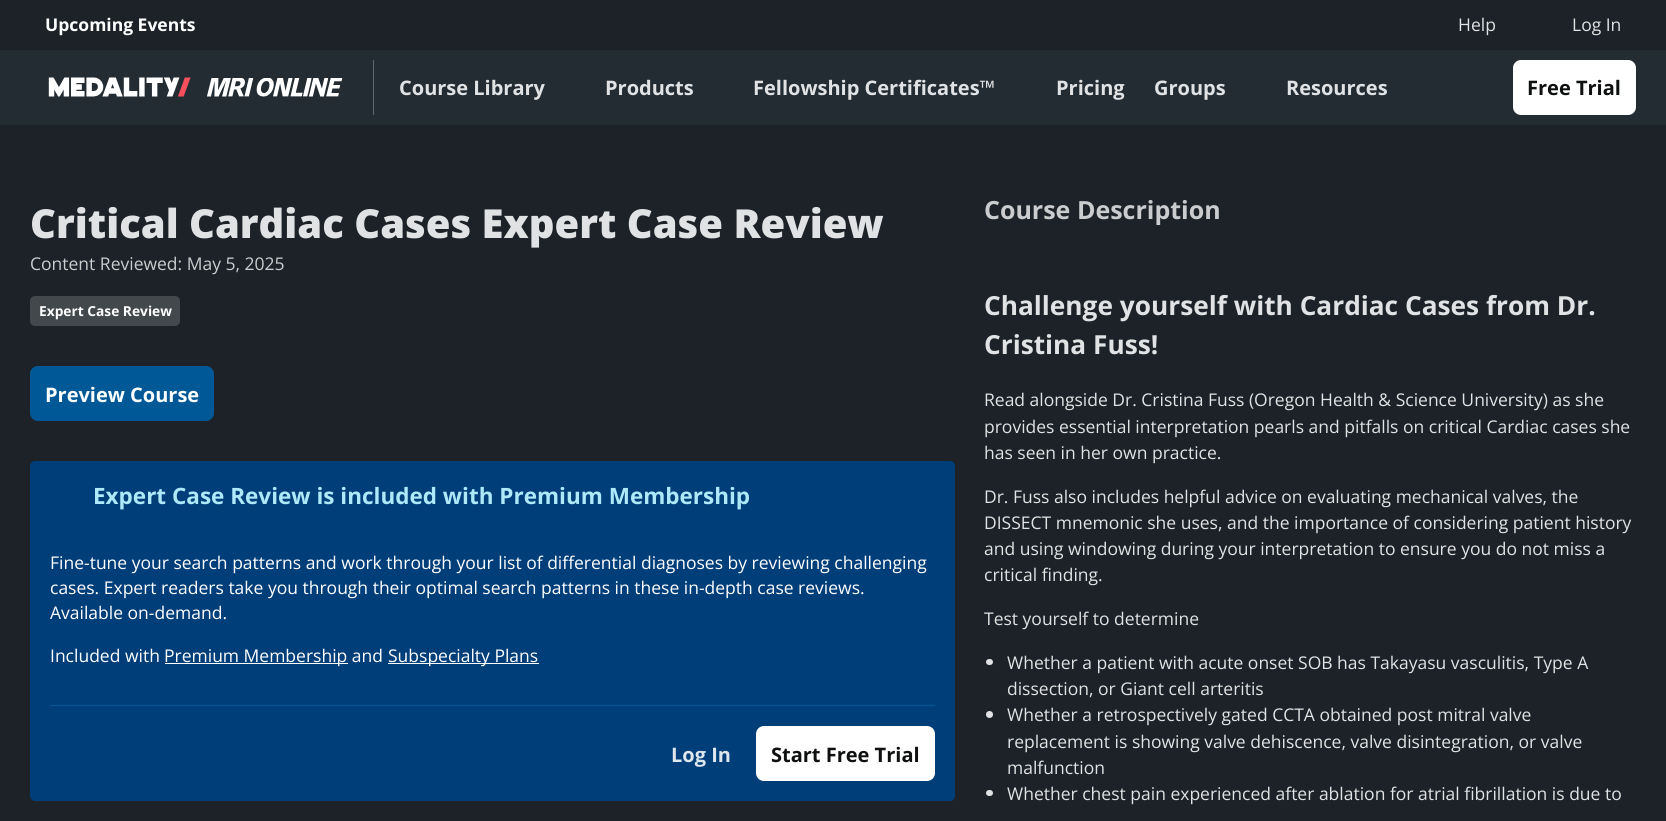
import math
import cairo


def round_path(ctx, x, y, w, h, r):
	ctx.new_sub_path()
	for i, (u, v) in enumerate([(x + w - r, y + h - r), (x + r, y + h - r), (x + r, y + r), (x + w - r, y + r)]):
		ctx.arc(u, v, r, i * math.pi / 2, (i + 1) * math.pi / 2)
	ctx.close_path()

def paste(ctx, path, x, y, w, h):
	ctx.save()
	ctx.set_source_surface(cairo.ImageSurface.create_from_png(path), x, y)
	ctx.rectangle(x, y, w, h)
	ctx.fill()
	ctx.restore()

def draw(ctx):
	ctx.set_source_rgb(0.11, 0.133, 0.153)
	ctx.paint()
	ctx.set_source_rgb(0.141, 0.173, 0.2)
	ctx.rectangle(0, 50, 1666, 75)
	ctx.fill()
	ctx.select_font_face('Open Sans', cairo.FONT_SLANT_NORMAL, cairo.FONT_WEIGHT_BOLD)
	ctx.set_font_size(17.5)
	ctx.set_source_rgb(1, 1, 1)
	ctx.move_to(45, 31)
	ctx.show_text('Upcoming Events')
	ctx.select_font_face('Open Sans')
	ctx.set_source_rgb(0.882, 0.886, 0.89)
	ctx.move_to(1458, 31)
	ctx.show_text('Help')
	ctx.move_to(1572, 31)
	ctx.show_text('Log In')
	ctx.set_source_rgb(0.373, 0.412, 0.451)
	ctx.rectangle(373, 60, 1, 55)
	ctx.fill()
	paste(ctx, 'media/1.png', 48, 77, 295, 20)
	ctx.select_font_face('Open Sans', cairo.FONT_SLANT_NORMAL, cairo.FONT_WEIGHT_BOLD)
	ctx.set_font_size(20)
	ctx.set_source_rgb(0.882, 0.886, 0.89)
	for x, y, s in [
		(399, 95, 'Course Library'),
		(605, 95, 'Products'),
		(753, 95, 'Fellowship Certificates™'),
		(1056, 95, 'Pricing'),
		(1154, 95, 'Groups'),
		(1286, 95, 'Resources'),
	]:
		ctx.move_to(x, y)
		ctx.show_text(s)
	ctx.set_source_rgb(1, 1, 1)
	round_path(ctx, 1513, 60, 123, 55, 8)
	ctx.fill()
	ctx.set_source_rgb(0.059, 0.063, 0.063)
	ctx.move_to(1527, 95)
	ctx.show_text('Free Trial')
	ctx.select_font_face('Open Sans ExtraBold')
	ctx.set_font_size(40)
	ctx.set_source_rgb(0.882, 0.886, 0.89)
	ctx.move_to(30, 238)
	ctx.show_text('Critical Cardiac Cases Expert Case Review')
	ctx.select_font_face('Open Sans')
	ctx.set_font_size(17.5)
	ctx.set_source_rgb(0.796, 0.8, 0.804)
	ctx.move_to(30, 270)
	ctx.show_text('Content Reviewed: May 5, 2025')
	ctx.set_source_rgb(0.263, 0.282, 0.298)
	round_path(ctx, 30, 296, 150, 30, 5)
	ctx.fill()
	ctx.select_font_face('Open Sans', cairo.FONT_SLANT_NORMAL, cairo.FONT_WEIGHT_BOLD)
	ctx.set_font_size(13.75)
	ctx.set_source_rgb(1, 1, 1)
	ctx.move_to(39, 316)
	ctx.show_text('Expert Case Review')
	ctx.set_source_rgb(0, 0.349, 0.588)
	round_path(ctx, 30, 366, 184, 55, 8)
	ctx.fill()
	ctx.set_font_size(20)
	ctx.set_source_rgb(1, 1, 1)
	ctx.move_to(45, 402)
	ctx.show_text('Preview Course')
	ctx.set_source_rgb(0, 0.243, 0.478)
	round_path(ctx, 30, 461, 925, 340, 5)
	ctx.fill()
	ctx.set_font_size(22.5)
	ctx.set_source_rgb(0.678, 0.914, 0.969)
	ctx.move_to(93, 504)
	ctx.show_text('Expert Case Review is included with Premium Membership')
	ctx.select_font_face('Open Sans')
	ctx.set_font_size(17.5)
	ctx.set_source_rgb(1, 1, 1)
	for x, y, s in [
		(50, 569, 'Fine-tune your search patterns and work through your list of differential diagnoses by reviewing challenging'),
		(50, 594, 'cases. Expert readers take you through their optimal search patterns in these in-depth case reviews.'),
		(50, 619, 'Available on-demand.'),
		(50, 662, 'Included with'),
	]:
		ctx.move_to(x, y)
		ctx.show_text(s)
	ctx.rectangle(165, 663, 183, 1)
	ctx.fill()
	ctx.move_to(164, 662)
	ctx.show_text('Premium Membership and')
	ctx.rectangle(388, 663, 151, 1)
	ctx.fill()
	ctx.move_to(388, 662)
	ctx.show_text('Subspecialty Plans')
	ctx.set_source_rgb(0, 0.349, 0.588)
	ctx.rectangle(50, 705, 885, 1)
	ctx.fill()
	ctx.select_font_face('Open Sans', cairo.FONT_SLANT_NORMAL, cairo.FONT_WEIGHT_BOLD)
	ctx.set_font_size(20)
	ctx.set_source_rgb(0.871, 0.902, 0.933)
	ctx.move_to(671, 762)
	ctx.show_text('Log In')
	ctx.set_source_rgb(1, 1, 1)
	round_path(ctx, 756, 726, 179, 55, 8)
	ctx.fill()
	ctx.set_source_rgb(0.059, 0.063, 0.063)
	ctx.move_to(771, 762)
	ctx.show_text('Start Free Trial')
	ctx.set_font_size(25)
	ctx.set_source_rgb(0.796, 0.8, 0.804)
	ctx.move_to(984, 219)
	ctx.show_text('Course Description')
	ctx.set_font_size(26.25)
	ctx.set_source_rgb(0.882, 0.886, 0.89)
	ctx.move_to(984, 315)
	ctx.show_text('Challenge yourself with Cardiac Cases from Dr.')
	ctx.move_to(984, 354)
	ctx.show_text('Cristina Fuss!')
	ctx.select_font_face('Open Sans')
	ctx.set_font_size(17.5)
	for x, y, s in [
		(984, 406, 'Read alongside Dr. Cristina Fuss (Oregon Health & Science University) as she'),
		(984, 433, 'provides essential interpretation pearls and pitfalls on critical Cardiac cases she'),
		(984, 459, 'has seen in her own practice.'),
		(984, 503, 'Dr. Fuss also includes helpful advice on evaluating mechanical valves, the'),
		(984, 529, 'DISSECT mnemonic she uses, and the importance of considering patient history'),
		(984, 555, 'and using windowing during your interpretation to ensure you do not miss a'),
		(984, 581, 'critical finding.'),
		(984, 625, 'Test yourself to determine'),
	]:
		ctx.move_to(x, y)
		ctx.show_text(s)
	round_path(ctx, 986, 659, 7, 6, 3)
	ctx.fill()
	ctx.move_to(1007, 669)
	ctx.show_text('Whether a patient with acute onset SOB has Takayasu vasculitis, Type A')
	ctx.move_to(1007, 695)
	ctx.show_text('dissection, or Giant cell arteritis')
	ctx.new_path()
	ctx.arc(989.5, 714.5, 3.5, 0, 2 * math.pi)
	ctx.fill()
	for x, y, s in [
		(1007, 721, 'Whether a retrospectively gated CCTA obtained post mitral valve'),
		(1007, 748, 'replacement is showing valve dehiscence, valve disintegration, or valve'),
		(1007, 774, 'malfunction'),
	]:
		ctx.move_to(x, y)
		ctx.show_text(s)
	round_path(ctx, 986, 790, 7, 6, 3)
	ctx.fill()
	ctx.move_to(1007, 800)
	ctx.show_text('Whether chest pain experienced after ablation for atrial fibrillation is due to')


surface = cairo.ImageSurface(cairo.FORMAT_RGB24, 1666, 821)
ctx = cairo.Context(surface)
options = cairo.FontOptions()
options.set_hint_metrics(cairo.HINT_METRICS_OFF)
options.set_hint_style(cairo.HINT_STYLE_NONE)
ctx.set_font_options(options)
ctx.set_miter_limit(4)
draw(ctx)
surface.write_to_png('image.png')
